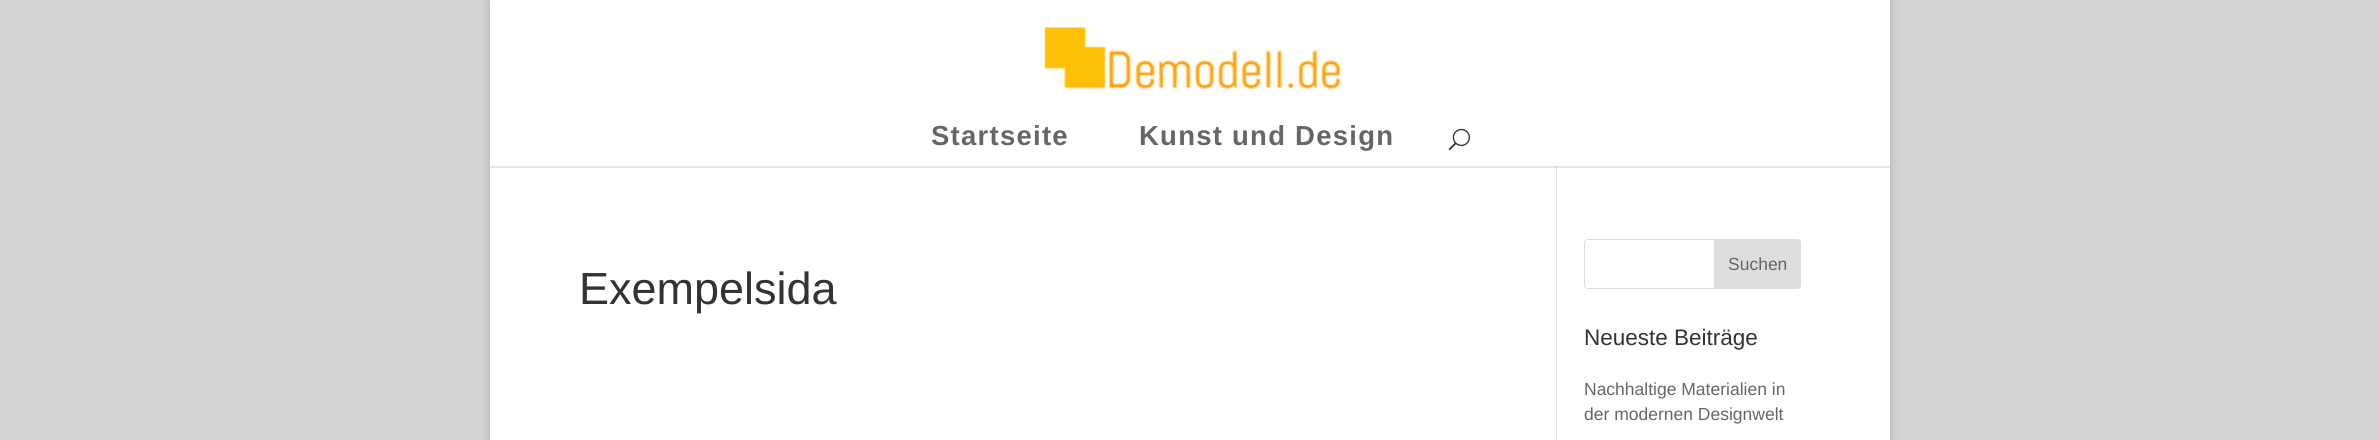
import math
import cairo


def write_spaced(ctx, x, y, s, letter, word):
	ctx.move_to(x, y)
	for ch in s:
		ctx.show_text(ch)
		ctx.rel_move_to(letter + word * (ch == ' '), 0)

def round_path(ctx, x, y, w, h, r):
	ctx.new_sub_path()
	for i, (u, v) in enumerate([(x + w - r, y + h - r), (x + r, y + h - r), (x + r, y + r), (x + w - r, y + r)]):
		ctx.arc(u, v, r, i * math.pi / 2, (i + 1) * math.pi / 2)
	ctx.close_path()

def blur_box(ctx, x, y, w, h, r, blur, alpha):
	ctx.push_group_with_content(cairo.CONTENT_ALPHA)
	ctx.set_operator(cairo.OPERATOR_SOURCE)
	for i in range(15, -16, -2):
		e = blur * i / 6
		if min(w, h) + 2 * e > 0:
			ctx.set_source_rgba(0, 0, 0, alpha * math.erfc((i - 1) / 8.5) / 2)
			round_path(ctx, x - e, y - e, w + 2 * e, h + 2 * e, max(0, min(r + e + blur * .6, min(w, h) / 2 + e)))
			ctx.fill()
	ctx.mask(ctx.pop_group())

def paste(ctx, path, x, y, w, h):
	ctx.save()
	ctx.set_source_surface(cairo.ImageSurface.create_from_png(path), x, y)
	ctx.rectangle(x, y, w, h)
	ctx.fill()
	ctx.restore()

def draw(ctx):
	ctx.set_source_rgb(0.839, 0.839, 0.839)
	ctx.paint()
	ctx.set_source_rgb(0, 0, 0)
	blur_box(ctx, 490, 0, 1400, 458, 0, 6, 0.2)
	ctx.set_source_rgb(1, 1, 1)
	ctx.rectangle(490, 0, 1400, 166)
	ctx.fill()
	paste(ctx, 'media/1.png', 1044, 27, 297, 63)
	ctx.select_font_face('Liberation Sans', cairo.FONT_SLANT_NORMAL, cairo.FONT_WEIGHT_BOLD)
	ctx.set_font_size(27.5)
	ctx.set_source_rgb(0.4, 0.4, 0.4)
	write_spaced(ctx, 931, 145, 'Startseite', 1.25, 0)
	write_spaced(ctx, 1139, 145, 'Kunst und Design', 1.25, 0)
	paste(ctx, 'media/2.png', 1448, 128, 22, 23)
	ctx.set_source_rgb(1, 1, 1)
	ctx.rectangle(490, 168, 1400, 272)
	ctx.fill()
	ctx.set_source_rgb(0.902, 0.902, 0.902)
	ctx.rectangle(490, 166, 1400, 2)
	ctx.fill()
	ctx.set_source_rgb(0.886, 0.886, 0.886)
	ctx.rectangle(1556, 166, 1, 274)
	ctx.fill()
	ctx.set_source_rgb(0.796, 0.796, 0.796)
	ctx.rectangle(1556, 166, 1, 2)
	ctx.fill()
	ctx.select_font_face('Liberation Sans')
	ctx.set_font_size(45)
	ctx.set_source_rgb(0.2, 0.2, 0.2)
	ctx.move_to(579, 304)
	ctx.show_text('Exempelsida')
	round_path(ctx, 1584.5, 239.5, 216, 49, 3.5)
	ctx.set_source_rgb(0.867, 0.867, 0.867)
	ctx.set_line_width(1)
	ctx.stroke()
	ctx.new_path()
	ctx.move_to(1714.5, 239.5)
	ctx.line_to(1797, 239.5)
	ctx.curve_to(1799, 239.5, 1800.5, 241, 1800.5, 243)
	ctx.line_to(1800.5, 285)
	ctx.curve_to(1800.5, 287, 1799, 288.5, 1797, 288.5)
	ctx.line_to(1714.5, 288.5)
	ctx.close_path()
	ctx.fill_preserve()
	ctx.stroke()
	ctx.set_font_size(17.5)
	ctx.set_source_rgb(0.4, 0.4, 0.4)
	ctx.move_to(1728, 270)
	ctx.show_text('Suchen')
	ctx.set_font_size(22.5)
	ctx.set_source_rgb(0.2, 0.2, 0.2)
	ctx.move_to(1584, 345)
	ctx.show_text('Neueste Beiträge')
	ctx.set_font_size(17.5)
	ctx.set_source_rgb(0.4, 0.4, 0.4)
	ctx.move_to(1584, 395)
	ctx.show_text('Nachhaltige Materialien in')
	ctx.move_to(1584, 420)
	ctx.show_text('der modernen Designwelt')


surface = cairo.ImageSurface(cairo.FORMAT_RGB24, 2379, 440)
ctx = cairo.Context(surface)
options = cairo.FontOptions()
options.set_hint_metrics(cairo.HINT_METRICS_OFF)
options.set_hint_style(cairo.HINT_STYLE_NONE)
ctx.set_font_options(options)
ctx.set_miter_limit(4)
draw(ctx)
surface.write_to_png('image.png')
